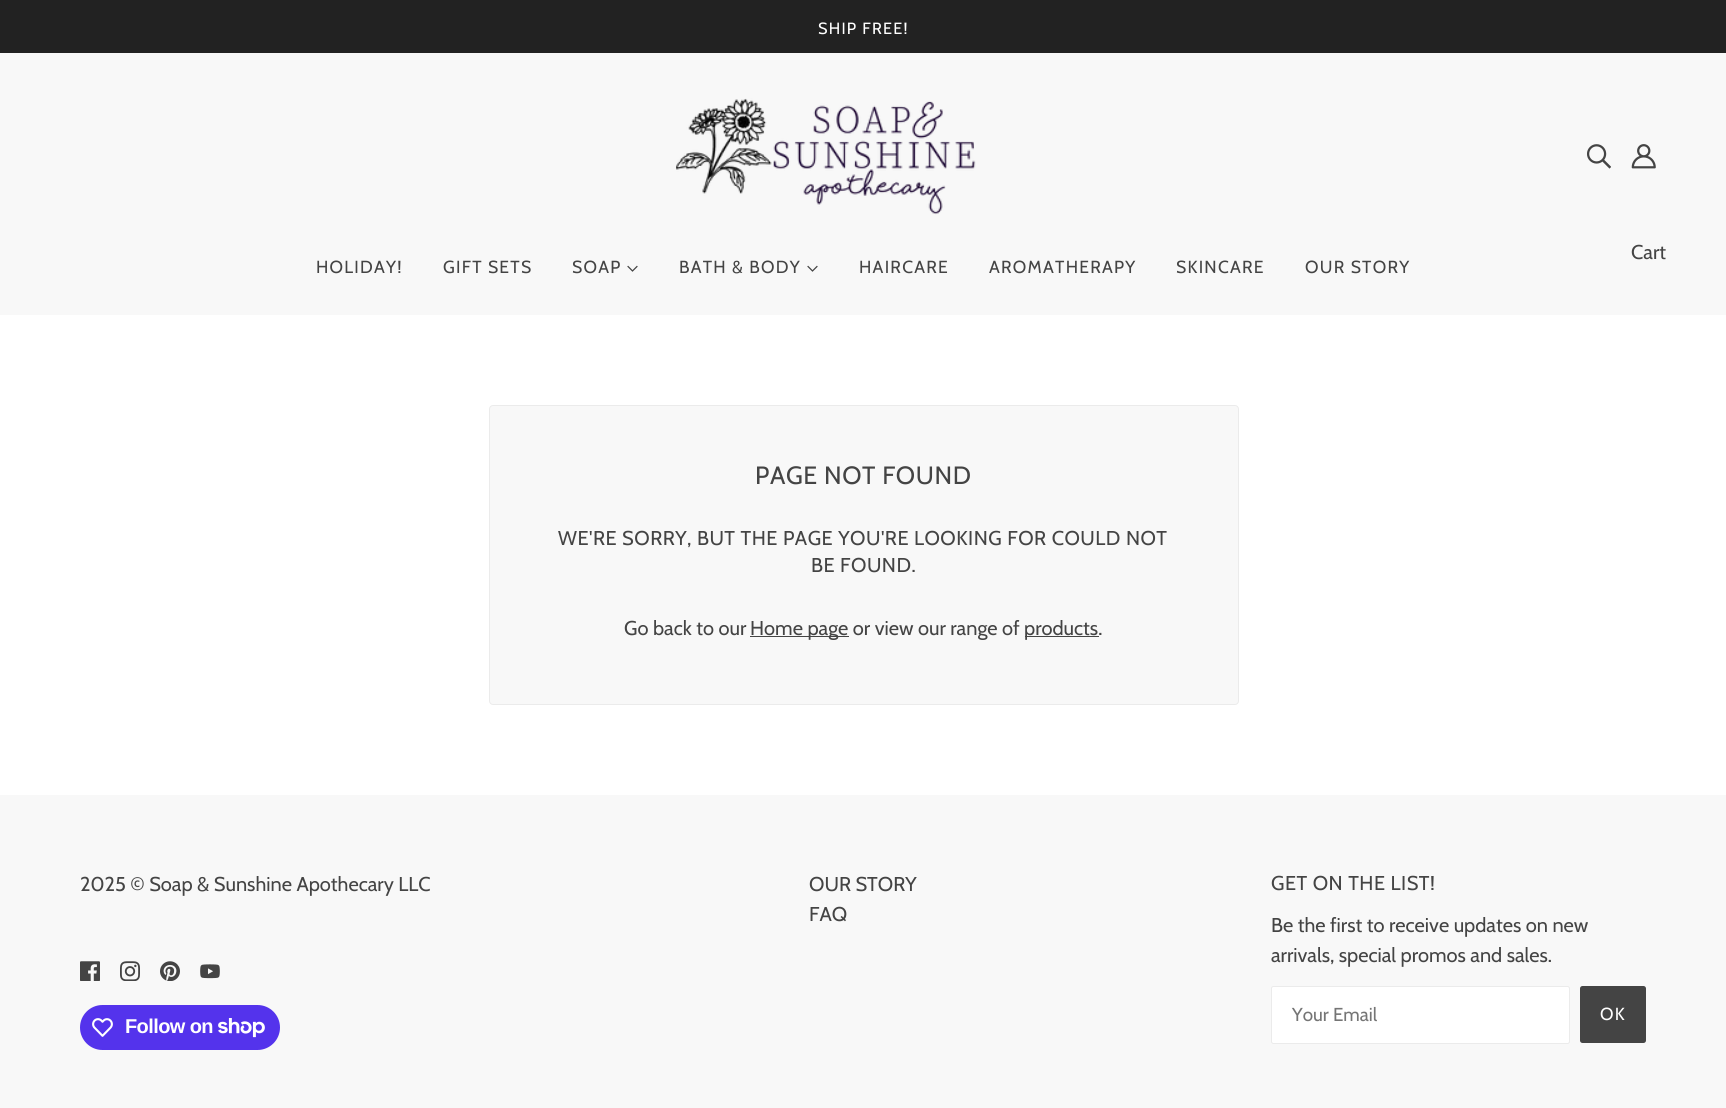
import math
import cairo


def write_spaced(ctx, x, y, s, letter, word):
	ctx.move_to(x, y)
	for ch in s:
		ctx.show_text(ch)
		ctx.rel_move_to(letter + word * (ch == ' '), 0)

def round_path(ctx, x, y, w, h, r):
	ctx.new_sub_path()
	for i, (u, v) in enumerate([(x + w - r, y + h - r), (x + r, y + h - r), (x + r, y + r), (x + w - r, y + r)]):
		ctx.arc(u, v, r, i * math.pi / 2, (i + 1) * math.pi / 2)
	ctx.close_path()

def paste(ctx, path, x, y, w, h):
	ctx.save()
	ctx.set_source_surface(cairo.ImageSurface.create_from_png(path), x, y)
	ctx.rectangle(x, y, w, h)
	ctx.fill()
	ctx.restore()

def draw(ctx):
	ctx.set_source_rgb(1, 1, 1)
	ctx.paint()
	ctx.set_source_rgb(0.133, 0.133, 0.133)
	ctx.rectangle(0, 0, 1726, 53)
	ctx.fill()
	ctx.select_font_face('Cabin')
	ctx.set_font_size(16.25)
	ctx.set_source_rgb(1, 1, 1)
	write_spaced(ctx, 818, 34, 'SHIP FREE!', 1.25, 0)
	ctx.set_source_rgb(0.969, 0.969, 0.969)
	ctx.rectangle(0, 53, 1726, 262)
	ctx.fill()
	paste(ctx, 'media/1.png', 676, 98, 300, 117)
	paste(ctx, 'media/2.png', 1587, 144, 24, 25)
	paste(ctx, 'media/3.png', 1631, 144, 25, 25)
	ctx.set_font_size(20)
	ctx.set_source_rgb(0.267, 0.267, 0.267)
	ctx.move_to(1631, 259)
	ctx.show_text('Cart')
	ctx.set_font_size(17.5)
	for x, y, s in [
		(316, 273, 'HOLIDAY!'),
		(443, 273, 'GIFT SETS'),
		(572, 273, 'SOAP'),
	]:
		write_spaced(ctx, x, y, s, 1.25, 0)
	paste(ctx, 'media/4.png', 627, 265, 11, 7)
	write_spaced(ctx, 679, 273, 'BATH & BODY', 1.25, 0)
	paste(ctx, 'media/4.png', 807, 265, 11, 7)
	for x, y, s in [
		(859, 273, 'HAIRCARE'),
		(989, 273, 'AROMATHERAPY'),
		(1176, 273, 'SKINCARE'),
		(1305, 273, 'OUR STORY'),
	]:
		write_spaced(ctx, x, y, s, 1.25, 0)
	ctx.set_source_rgb(0.969, 0.969, 0.969)
	round_path(ctx, 489.5, 405.5, 749, 299, 3.5)
	ctx.fill_preserve()
	ctx.set_source_rgb(0.918, 0.918, 0.918)
	ctx.set_line_width(1)
	ctx.stroke()
	ctx.set_font_size(25)
	ctx.set_source_rgb(0.267, 0.267, 0.267)
	write_spaced(ctx, 755, 484, 'PAGE NOT FOUND', 0.6, 0)
	ctx.set_font_size(20)
	write_spaced(ctx, 558, 545, 'WE\'RE SORRY, BUT THE PAGE YOU\'RE LOOKING FOR COULD NOT', 0.5, 0)
	write_spaced(ctx, 811, 572, 'BE FOUND.', 0.5, 0)
	ctx.move_to(624, 635)
	ctx.show_text('Go back to our')
	ctx.rectangle(750, 636, 99, 1)
	ctx.fill()
	ctx.move_to(750, 635)
	ctx.show_text('Home page or view our range of')
	ctx.rectangle(1025, 636, 74, 1)
	ctx.fill()
	ctx.move_to(1024, 635)
	ctx.show_text('products.')
	ctx.set_source_rgb(0.969, 0.969, 0.969)
	ctx.rectangle(0, 795, 1726, 313)
	ctx.fill()
	ctx.set_source_rgb(0.267, 0.267, 0.267)
	ctx.move_to(80, 891)
	ctx.show_text('2025 © Soap & Sunshine Apothecary LLC')
	paste(ctx, 'media/5.png', 80, 961, 20, 20)
	paste(ctx, 'media/6.png', 120, 961, 20, 20)
	paste(ctx, 'media/7.png', 160, 961, 20, 20)
	paste(ctx, 'media/8.png', 200, 964, 20, 15)
	ctx.set_source_rgb(0.329, 0.2, 0.922)
	round_path(ctx, 80, 1005, 200, 45, 22.5)
	ctx.fill()
	paste(ctx, 'media/9.png', 92, 1018, 21, 19)
	ctx.select_font_face('Liberation Sans', cairo.FONT_SLANT_NORMAL, cairo.FONT_WEIGHT_BOLD)
	ctx.set_source_rgb(1, 1, 1)
	write_spaced(ctx, 125, 1033, 'Follow on', -0.6, 0)
	paste(ctx, 'media/10.png', 218, 1018, 47, 20)
	ctx.select_font_face('Cabin')
	ctx.set_source_rgb(0.267, 0.267, 0.267)
	ctx.move_to(809, 891)
	ctx.show_text('OUR STORY')
	ctx.move_to(809, 921)
	ctx.show_text('FAQ')
	write_spaced(ctx, 1271, 890, 'GET ON THE LIST!', 0.5, 0)
	ctx.move_to(1271, 932)
	ctx.show_text('Be the first to receive updates on new')
	ctx.move_to(1271, 962)
	ctx.show_text('arrivals, special promos and sales.')
	ctx.set_source_rgb(1, 1, 1)
	round_path(ctx, 1271.5, 986.5, 298, 57, 2)
	ctx.fill_preserve()
	ctx.set_source_rgb(0.918, 0.918, 0.918)
	ctx.stroke()
	ctx.set_font_size(18.75)
	ctx.set_source_rgb(0.459, 0.459, 0.459)
	ctx.move_to(1292, 1021)
	ctx.show_text('Your Email')
	ctx.set_source_rgb(0.267, 0.267, 0.267)
	round_path(ctx, 1580, 986, 66, 57, 2.5)
	ctx.fill()
	ctx.set_font_size(17.5)
	ctx.set_source_rgb(1, 1, 1)
	write_spaced(ctx, 1600, 1020, 'OK', 1.25, 0)


surface = cairo.ImageSurface(cairo.FORMAT_RGB24, 1726, 1108)
ctx = cairo.Context(surface)
options = cairo.FontOptions()
options.set_hint_metrics(cairo.HINT_METRICS_OFF)
options.set_hint_style(cairo.HINT_STYLE_NONE)
ctx.set_font_options(options)
ctx.set_miter_limit(4)
draw(ctx)
surface.write_to_png('image.png')
